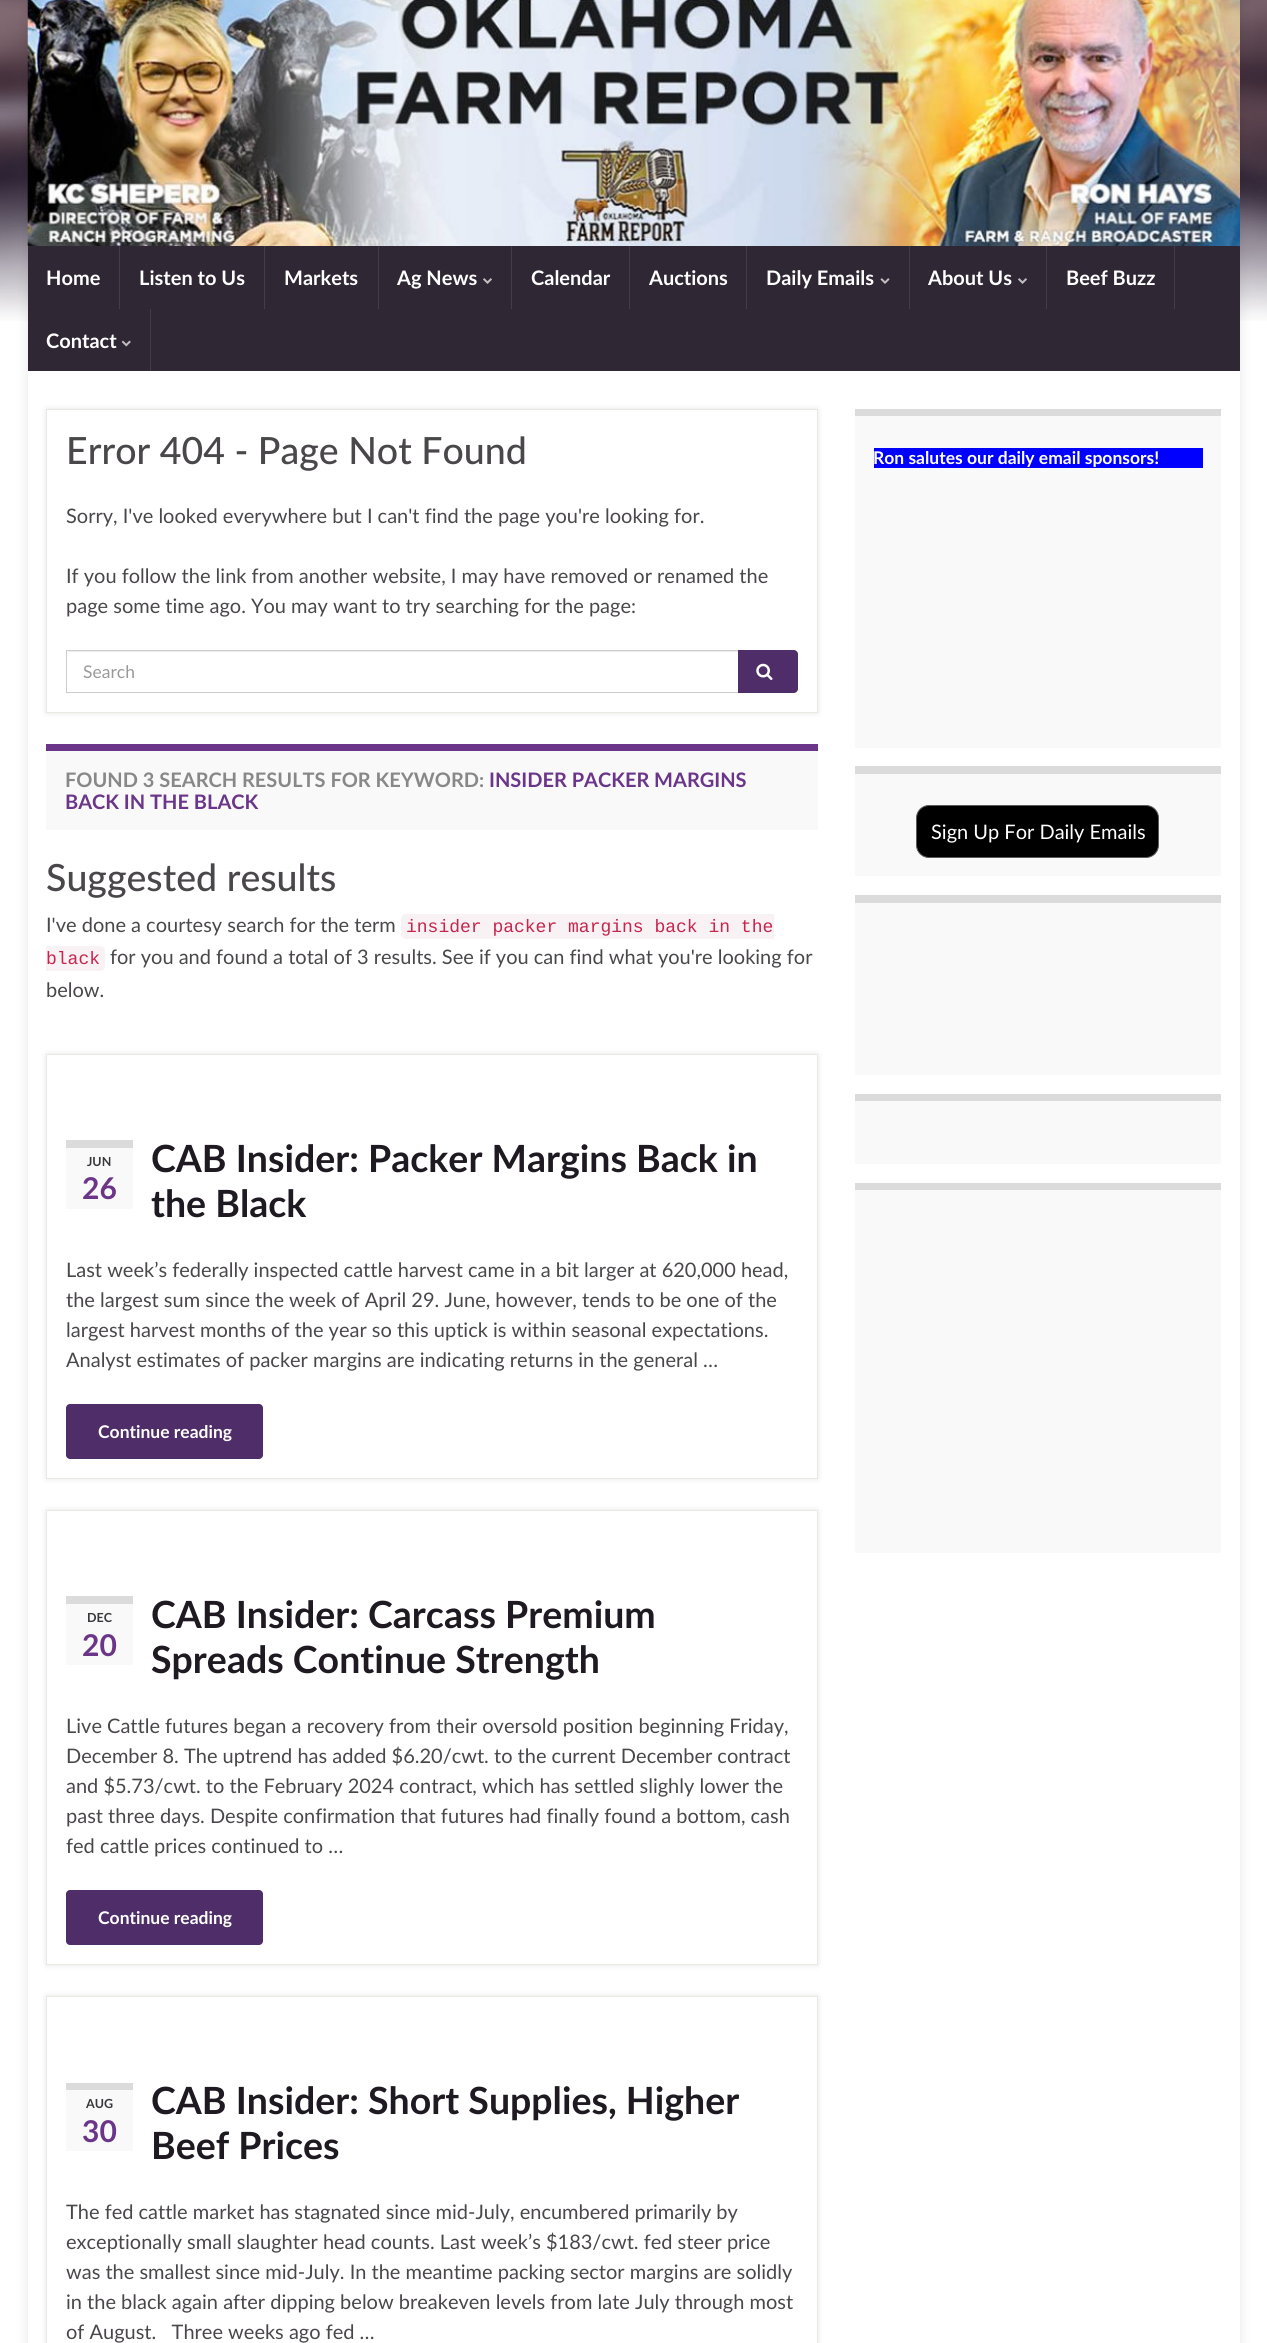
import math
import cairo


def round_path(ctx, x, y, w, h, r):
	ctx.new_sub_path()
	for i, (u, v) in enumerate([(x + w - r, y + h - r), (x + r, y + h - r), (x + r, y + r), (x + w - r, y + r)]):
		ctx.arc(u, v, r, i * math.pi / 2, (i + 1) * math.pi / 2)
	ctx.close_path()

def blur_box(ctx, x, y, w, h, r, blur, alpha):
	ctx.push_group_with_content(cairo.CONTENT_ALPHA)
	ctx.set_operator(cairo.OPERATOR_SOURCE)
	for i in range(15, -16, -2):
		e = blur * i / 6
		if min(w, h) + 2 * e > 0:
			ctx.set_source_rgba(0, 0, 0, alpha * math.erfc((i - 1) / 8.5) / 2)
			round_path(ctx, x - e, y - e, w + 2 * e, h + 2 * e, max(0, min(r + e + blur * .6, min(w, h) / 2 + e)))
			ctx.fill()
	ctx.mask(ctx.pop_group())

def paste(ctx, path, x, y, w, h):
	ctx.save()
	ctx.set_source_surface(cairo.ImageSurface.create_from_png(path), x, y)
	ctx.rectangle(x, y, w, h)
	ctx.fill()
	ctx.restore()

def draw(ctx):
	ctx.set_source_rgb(1, 1, 1)
	ctx.paint()
	paste(ctx, 'media/1.png', 0, 0, 1267, 321)
	ctx.save()
	ctx.set_fill_rule(cairo.FILL_RULE_EVEN_ODD)
	ctx.new_path()
	ctx.move_to(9, 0)
	ctx.line_to(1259, 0)
	ctx.line_to(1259, 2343)
	ctx.line_to(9, 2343)
	ctx.close_path()
	ctx.move_to(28, -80)
	ctx.line_to(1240, -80)
	ctx.line_to(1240, 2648)
	ctx.line_to(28, 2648)
	ctx.close_path()
	ctx.clip()
	ctx.set_source_rgb(0, 0, 0)
	blur_box(ctx, 28, -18, 1212, 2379, 0, 6, 0.1)
	ctx.restore()
	paste(ctx, 'media/2.png', 27, 0, 1213, 246)
	ctx.set_source_rgb(0.184, 0.153, 0.2)
	ctx.rectangle(28, 246, 1212, 125)
	ctx.fill()
	ctx.set_source_rgb(0.267, 0.239, 0.278)
	ctx.rectangle(119, 246, 1, 63)
	ctx.fill()
	ctx.select_font_face('Lato', cairo.FONT_SLANT_NORMAL, cairo.FONT_WEIGHT_BOLD)
	ctx.set_font_size(20)
	ctx.set_source_rgb(1, 1, 1)
	ctx.move_to(46, 285)
	ctx.show_text('Home')
	ctx.set_source_rgb(0.267, 0.239, 0.278)
	ctx.rectangle(264, 246, 1, 63)
	ctx.fill()
	ctx.set_source_rgb(1, 1, 1)
	ctx.move_to(139, 285)
	ctx.show_text('Listen to Us')
	ctx.set_source_rgb(0.267, 0.239, 0.278)
	ctx.rectangle(378, 246, 1, 63)
	ctx.fill()
	ctx.set_source_rgb(1, 1, 1)
	ctx.move_to(284, 285)
	ctx.show_text('Markets')
	ctx.set_source_rgb(0.267, 0.239, 0.278)
	ctx.rectangle(511, 246, 1, 63)
	ctx.fill()
	ctx.set_source_rgb(1, 1, 1)
	ctx.move_to(397, 285)
	ctx.show_text('Ag News')
	paste(ctx, 'media/3.png', 483, 278, 9, 6)
	ctx.set_source_rgb(0.267, 0.239, 0.278)
	ctx.rectangle(629, 246, 1, 63)
	ctx.fill()
	ctx.set_source_rgb(1, 1, 1)
	ctx.move_to(531, 285)
	ctx.show_text('Calendar')
	ctx.set_source_rgb(0.267, 0.239, 0.278)
	ctx.rectangle(746, 246, 1, 63)
	ctx.fill()
	ctx.set_source_rgb(1, 1, 1)
	ctx.move_to(649, 285)
	ctx.show_text('Auctions')
	ctx.set_source_rgb(0.267, 0.239, 0.278)
	ctx.rectangle(909, 246, 1, 63)
	ctx.fill()
	ctx.set_source_rgb(1, 1, 1)
	ctx.move_to(766, 285)
	ctx.show_text('Daily Emails')
	paste(ctx, 'media/4.png', 880, 278, 10, 6)
	ctx.set_source_rgb(0.267, 0.239, 0.278)
	ctx.rectangle(1046, 246, 1, 63)
	ctx.fill()
	ctx.set_source_rgb(1, 1, 1)
	ctx.move_to(928, 285)
	ctx.show_text('About Us')
	paste(ctx, 'media/3.png', 1018, 278, 9, 6)
	ctx.set_source_rgb(0.267, 0.239, 0.278)
	ctx.rectangle(1174, 246, 1, 63)
	ctx.fill()
	ctx.set_source_rgb(1, 1, 1)
	ctx.move_to(1066, 285)
	ctx.show_text('Beef Buzz')
	ctx.set_source_rgb(0.267, 0.239, 0.278)
	ctx.rectangle(150, 309, 1, 62)
	ctx.fill()
	ctx.set_source_rgb(1, 1, 1)
	ctx.move_to(46, 348)
	ctx.show_text('Contact')
	paste(ctx, 'media/5.png', 121, 340, 10, 7)
	ctx.set_source_rgb(0, 0, 0)
	blur_box(ctx, 46, 409, 772, 304, 0, 3, 0.1)
	ctx.set_source_rgb(1, 1, 1)
	ctx.rectangle(46.5, 409.5, 771, 303)
	ctx.fill_preserve()
	ctx.set_source_rgb(0.914, 0.91, 0.89)
	ctx.set_line_width(1)
	ctx.stroke()
	ctx.select_font_face('Lato Medium')
	ctx.set_font_size(37.5)
	ctx.set_source_rgb(0.29, 0.278, 0.294)
	ctx.move_to(66, 464)
	ctx.show_text('Error 404 - Page Not Found')
	ctx.select_font_face('Lato')
	ctx.set_font_size(20)
	for x, y, s in [
		(66, 523, 'Sorry, I\'ve looked everywhere but I can\'t find the page you\'re looking for.'),
		(66, 583, 'If you follow the link from another website, I may have removed or renamed the'),
		(66, 613, 'page some time ago. You may want to try searching for the page:'),
	]:
		ctx.move_to(x, y)
		ctx.show_text(s)
	ctx.set_source_rgb(0.925, 0.925, 0.925)
	ctx.rectangle(68, 651, 670, 1)
	ctx.fill()
	ctx.rectangle(66.5, 650.5, 672, 42)
	ctx.set_source_rgb(0.8, 0.8, 0.8)
	ctx.stroke()
	ctx.set_font_size(17.5)
	ctx.set_source_rgb(0.6, 0.6, 0.6)
	ctx.move_to(83, 678)
	ctx.show_text('Search')
	ctx.set_source_rgb(0.31, 0.176, 0.412)
	ctx.new_path()
	ctx.move_to(738, 650)
	ctx.line_to(794, 650)
	ctx.curve_to(796, 650, 798, 652, 798, 654)
	ctx.line_to(798, 689)
	ctx.curve_to(798, 691, 796, 693, 794, 693)
	ctx.line_to(738, 693)
	ctx.close_path()
	ctx.fill()
	paste(ctx, 'media/6.png', 756, 663, 17, 17)
	ctx.set_source_rgb(0.976, 0.976, 0.976)
	ctx.rectangle(46, 751, 772, 79)
	ctx.fill()
	ctx.set_source_rgb(0.42, 0.208, 0.537)
	ctx.rectangle(46, 744, 772, 7)
	ctx.fill()
	ctx.select_font_face('Lato', cairo.FONT_SLANT_NORMAL, cairo.FONT_WEIGHT_BOLD)
	ctx.set_font_size(20)
	ctx.set_source_rgb(0.533, 0.533, 0.533)
	ctx.move_to(65, 787)
	ctx.show_text('FOUND 3 SEARCH RESULTS FOR KEYWORD:')
	ctx.set_source_rgb(0.42, 0.208, 0.537)
	ctx.move_to(489, 787)
	ctx.show_text('INSIDER PACKER MARGINS')
	ctx.move_to(65, 809)
	ctx.show_text('BACK IN THE BLACK')
	ctx.select_font_face('Lato Medium')
	ctx.set_font_size(37.5)
	ctx.set_source_rgb(0.29, 0.278, 0.294)
	ctx.move_to(46, 891)
	ctx.show_text('Suggested results')
	ctx.select_font_face('Lato')
	ctx.set_font_size(20)
	ctx.move_to(46, 932)
	ctx.show_text('I\'ve done a courtesy search for the term')
	ctx.set_source_rgb(0.976, 0.949, 0.957)
	ctx.new_path()
	ctx.move_to(406, 914)
	ctx.line_to(774, 914)
	ctx.line_to(774, 939)
	ctx.line_to(406, 939)
	ctx.curve_to(403, 939, 401, 937, 401, 934)
	ctx.line_to(401, 919)
	ctx.curve_to(401, 916, 403, 914, 406, 914)
	ctx.close_path()
	ctx.fill()
	ctx.select_font_face('Liberation Mono')
	ctx.set_font_size(18)
	ctx.set_source_rgb(0.78, 0.145, 0.306)
	ctx.move_to(406, 932)
	ctx.show_text('insider packer margins back in the')
	ctx.set_source_rgb(0.976, 0.949, 0.957)
	ctx.new_path()
	ctx.move_to(46, 946)
	ctx.line_to(100, 946)
	ctx.curve_to(103, 946, 105, 948, 105, 951)
	ctx.line_to(105, 966)
	ctx.curve_to(105, 969, 103, 971, 100, 971)
	ctx.line_to(46, 971)
	ctx.close_path()
	ctx.fill()
	ctx.set_source_rgb(0.78, 0.145, 0.306)
	ctx.move_to(46, 964)
	ctx.show_text('black')
	ctx.select_font_face('Lato')
	ctx.set_font_size(20)
	ctx.set_source_rgb(0.29, 0.278, 0.294)
	ctx.move_to(110, 964)
	ctx.show_text('for you and found a total of 3 results. See if you can find what you\'re looking for')
	ctx.move_to(46, 997)
	ctx.show_text('below.')
	ctx.set_source_rgb(0, 0, 0)
	blur_box(ctx, 46, 1054, 772, 425, 0, 3, 0.1)
	ctx.set_source_rgb(1, 1, 1)
	ctx.rectangle(46.5, 1054.5, 771, 424)
	ctx.fill_preserve()
	ctx.set_source_rgb(0.914, 0.91, 0.89)
	ctx.stroke()
	ctx.set_source_rgb(0.976, 0.976, 0.976)
	ctx.rectangle(66, 1148, 67, 61)
	ctx.fill()
	ctx.set_source_rgb(0.859, 0.859, 0.859)
	ctx.rectangle(66, 1140, 67, 8)
	ctx.fill()
	ctx.select_font_face('Lato', cairo.FONT_SLANT_NORMAL, cairo.FONT_WEIGHT_BOLD)
	ctx.set_font_size(12.5)
	ctx.set_source_rgb(0.231, 0.22, 0.239)
	ctx.move_to(87, 1166)
	ctx.show_text('JUN')
	ctx.set_font_size(30)
	ctx.set_source_rgb(0.42, 0.208, 0.537)
	ctx.move_to(82, 1199)
	ctx.show_text('26')
	ctx.set_font_size(37.5)
	ctx.set_source_rgb(0.122, 0.102, 0.133)
	ctx.move_to(151, 1172)
	ctx.show_text('CAB Insider: Packer Margins Back in')
	ctx.move_to(151, 1217)
	ctx.show_text('the Black')
	ctx.select_font_face('Lato')
	ctx.set_font_size(20)
	ctx.set_source_rgb(0.29, 0.278, 0.294)
	for x, y, s in [
		(66, 1277, 'Last week’s federally inspected cattle harvest came in a bit larger at 620,000 head,'),
		(66, 1307, 'the largest sum since the week of April 29. June, however, tends to be one of the'),
		(66, 1337, 'largest harvest months of the year so this uptick is within seasonal expectations.'),
		(66, 1367, 'Analyst estimates of packer margins are indicating returns in the general …'),
	]:
		ctx.move_to(x, y)
		ctx.show_text(s)
	ctx.set_source_rgb(0.31, 0.176, 0.412)
	round_path(ctx, 66, 1404, 197, 55, 4)
	ctx.fill()
	ctx.select_font_face('Lato', cairo.FONT_SLANT_NORMAL, cairo.FONT_WEIGHT_BOLD)
	ctx.set_font_size(17.5)
	ctx.set_source_rgb(1, 1, 1)
	ctx.move_to(98, 1438)
	ctx.show_text('Continue reading')
	ctx.set_source_rgb(0, 0, 0)
	blur_box(ctx, 46, 1510, 772, 455, 0, 3, 0.1)
	ctx.set_source_rgb(1, 1, 1)
	ctx.rectangle(46.5, 1510.5, 771, 454)
	ctx.fill_preserve()
	ctx.set_source_rgb(0.914, 0.91, 0.89)
	ctx.stroke()
	ctx.set_source_rgb(0.976, 0.976, 0.976)
	ctx.rectangle(66, 1604, 67, 61)
	ctx.fill()
	ctx.set_source_rgb(0.859, 0.859, 0.859)
	ctx.rectangle(66, 1596, 67, 8)
	ctx.fill()
	ctx.set_font_size(12.5)
	ctx.set_source_rgb(0.231, 0.22, 0.239)
	ctx.move_to(87, 1622)
	ctx.show_text('DEC')
	ctx.set_font_size(30)
	ctx.set_source_rgb(0.42, 0.208, 0.537)
	ctx.move_to(82, 1656)
	ctx.show_text('20')
	ctx.set_font_size(37.5)
	ctx.set_source_rgb(0.122, 0.102, 0.133)
	ctx.move_to(151, 1628)
	ctx.show_text('CAB Insider: Carcass Premium')
	ctx.move_to(151, 1673)
	ctx.show_text('Spreads Continue Strength')
	ctx.select_font_face('Lato')
	ctx.set_font_size(20)
	ctx.set_source_rgb(0.29, 0.278, 0.294)
	for x, y, s in [
		(66, 1733, 'Live Cattle futures began a recovery from their oversold position beginning Friday,'),
		(66, 1763, 'December 8. The uptrend has added $6.20/cwt. to the current December contract'),
		(66, 1793, 'and $5.73/cwt. to the February 2024 contract, which has settled slighly lower the'),
		(66, 1823, 'past three days. Despite confirmation that futures had finally found a bottom, cash'),
		(66, 1853, 'fed cattle prices continued to …'),
	]:
		ctx.move_to(x, y)
		ctx.show_text(s)
	ctx.set_source_rgb(0.31, 0.176, 0.412)
	round_path(ctx, 66, 1890, 197, 55, 4)
	ctx.fill()
	ctx.select_font_face('Lato', cairo.FONT_SLANT_NORMAL, cairo.FONT_WEIGHT_BOLD)
	ctx.set_font_size(17.5)
	ctx.set_source_rgb(1, 1, 1)
	ctx.move_to(98, 1924)
	ctx.show_text('Continue reading')
	ctx.set_source_rgb(0, 0, 0)
	blur_box(ctx, 46, 1996, 772, 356, 0, 3, 0.1)
	ctx.set_source_rgb(1, 1, 1)
	ctx.rectangle(46.5, 1996.5, 771, 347)
	ctx.fill_preserve()
	ctx.set_source_rgb(0.914, 0.91, 0.89)
	ctx.stroke()
	ctx.set_source_rgb(0.976, 0.976, 0.976)
	ctx.rectangle(66, 2090, 67, 61)
	ctx.fill()
	ctx.set_source_rgb(0.859, 0.859, 0.859)
	ctx.rectangle(66, 2083, 67, 7)
	ctx.fill()
	ctx.set_font_size(12.5)
	ctx.set_source_rgb(0.231, 0.22, 0.239)
	ctx.move_to(86, 2108)
	ctx.show_text('AUG')
	ctx.set_font_size(30)
	ctx.set_source_rgb(0.42, 0.208, 0.537)
	ctx.move_to(82, 2142)
	ctx.show_text('30')
	ctx.set_font_size(37.5)
	ctx.set_source_rgb(0.122, 0.102, 0.133)
	ctx.move_to(151, 2114)
	ctx.show_text('CAB Insider: Short Supplies, Higher')
	ctx.move_to(151, 2159)
	ctx.show_text('Beef Prices')
	ctx.select_font_face('Lato')
	ctx.set_font_size(20)
	ctx.set_source_rgb(0.29, 0.278, 0.294)
	for x, y, s in [
		(66, 2219, 'The fed cattle market has stagnated since mid-July, encumbered primarily by'),
		(66, 2249, 'exceptionally small slaughter head counts. Last week’s $183/cwt. fed steer price'),
		(66, 2279, 'was the smallest since mid-July. In the meantime packing sector margins are solidly'),
		(66, 2309, 'in the black again after dipping below breakeven levels from late July through most'),
		(66, 2339, 'of August.   Three weeks ago fed …'),
	]:
		ctx.move_to(x, y)
		ctx.show_text(s)
	ctx.set_source_rgb(0.976, 0.976, 0.976)
	ctx.rectangle(855, 416, 366, 332)
	ctx.fill()
	ctx.set_source_rgb(0.859, 0.859, 0.859)
	ctx.rectangle(855, 409, 366, 7)
	ctx.fill()
	ctx.set_source_rgb(0, 0, 1)
	ctx.rectangle(874, 448, 329, 20)
	ctx.fill()
	ctx.select_font_face('Lato', cairo.FONT_SLANT_NORMAL, cairo.FONT_WEIGHT_BOLD)
	ctx.set_font_size(17.5)
	ctx.set_source_rgb(1, 1, 1)
	ctx.move_to(873, 464)
	ctx.show_text('Ron salutes our daily email sponsors!')
	ctx.set_source_rgb(0.976, 0.976, 0.976)
	ctx.rectangle(855, 774, 366, 102)
	ctx.fill()
	ctx.set_source_rgb(0.859, 0.859, 0.859)
	ctx.rectangle(855, 766, 366, 8)
	ctx.fill()
	ctx.set_source_rgb(0, 0, 0)
	round_path(ctx, 916.5, 805.5, 242, 52, 12.5)
	ctx.fill_preserve()
	ctx.set_source_rgb(0.357, 0.357, 0.357)
	ctx.stroke()
	ctx.select_font_face('Lato')
	ctx.set_font_size(20)
	ctx.set_source_rgb(1, 1, 1)
	ctx.move_to(931, 839)
	ctx.show_text('Sign Up For Daily Emails')
	ctx.set_source_rgb(0.976, 0.976, 0.976)
	ctx.rectangle(855, 903, 366, 172)
	ctx.fill()
	ctx.set_source_rgb(0.859, 0.859, 0.859)
	ctx.rectangle(855, 895, 366, 8)
	ctx.fill()
	ctx.set_source_rgb(0.976, 0.976, 0.976)
	ctx.rectangle(855, 1101, 366, 63)
	ctx.fill()
	ctx.set_source_rgb(0.859, 0.859, 0.859)
	ctx.rectangle(855, 1094, 366, 7)
	ctx.fill()
	ctx.set_source_rgb(0.976, 0.976, 0.976)
	ctx.rectangle(855, 1190, 366, 363)
	ctx.fill()
	ctx.set_source_rgb(0.859, 0.859, 0.859)
	ctx.rectangle(855, 1183, 366, 7)
	ctx.fill()


surface = cairo.ImageSurface(cairo.FORMAT_RGB24, 1267, 2343)
ctx = cairo.Context(surface)
options = cairo.FontOptions()
options.set_hint_metrics(cairo.HINT_METRICS_OFF)
options.set_hint_style(cairo.HINT_STYLE_NONE)
ctx.set_font_options(options)
ctx.set_miter_limit(4)
draw(ctx)
surface.write_to_png('image.png')
